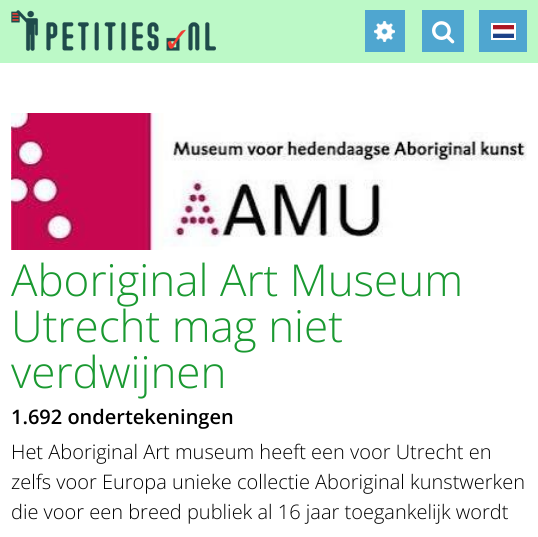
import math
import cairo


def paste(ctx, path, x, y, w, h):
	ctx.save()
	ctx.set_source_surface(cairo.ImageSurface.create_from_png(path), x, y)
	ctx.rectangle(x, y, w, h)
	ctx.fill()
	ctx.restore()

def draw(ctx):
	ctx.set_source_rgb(1, 1, 1)
	ctx.paint()
	ctx.set_source_rgb(0.737, 0.976, 0.78)
	ctx.rectangle(0, 0, 538, 63)
	ctx.fill()
	paste(ctx, 'media/1.png', 11, 10, 205, 41)
	ctx.set_source_rgb(0.31, 0.651, 0.816)
	ctx.rectangle(365, 10, 40, 42)
	ctx.fill()
	paste(ctx, 'media/2.png', 374, 21, 21, 21)
	ctx.rectangle(422, 10, 42, 42)
	ctx.fill()
	paste(ctx, 'media/3.png', 432, 21, 23, 23)
	ctx.rectangle(479, 10, 48, 42)
	ctx.fill()
	paste(ctx, 'media/4.png', 491, 23, 25, 17)
	paste(ctx, 'media/5.png', 11, 113, 516, 137)
	ctx.select_font_face('Open Sans Light')
	ctx.set_font_size(44)
	ctx.set_source_rgb(0.102, 0.6, 0.192)
	for x, y, s in [
		(11, 296, 'Aboriginal Art Museum'),
		(11, 342, 'Utrecht mag niet'),
		(11, 388, 'verdwijnen'),
	]:
		ctx.move_to(x, y)
		ctx.show_text(s)
	ctx.select_font_face('Open Sans SemiBold')
	ctx.set_font_size(20)
	ctx.set_source_rgb(0, 0, 0)
	ctx.move_to(11, 424)
	ctx.show_text('1.692 ondertekeningen')
	ctx.select_font_face('Open Sans Light')
	for x, y, s in [
		(11, 459, 'Het Aboriginal Art museum heeft een voor Utrecht en'),
		(11, 489, 'zelfs voor Europa unieke collectie Aboriginal kunstwerken'),
		(11, 519, 'die voor een breed publiek al 16 jaar toegankelijk wordt'),
	]:
		ctx.move_to(x, y)
		ctx.show_text(s)


surface = cairo.ImageSurface(cairo.FORMAT_RGB24, 538, 537)
ctx = cairo.Context(surface)
options = cairo.FontOptions()
options.set_hint_metrics(cairo.HINT_METRICS_OFF)
options.set_hint_style(cairo.HINT_STYLE_NONE)
ctx.set_font_options(options)
ctx.set_miter_limit(4)
draw(ctx)
surface.write_to_png('image.png')
